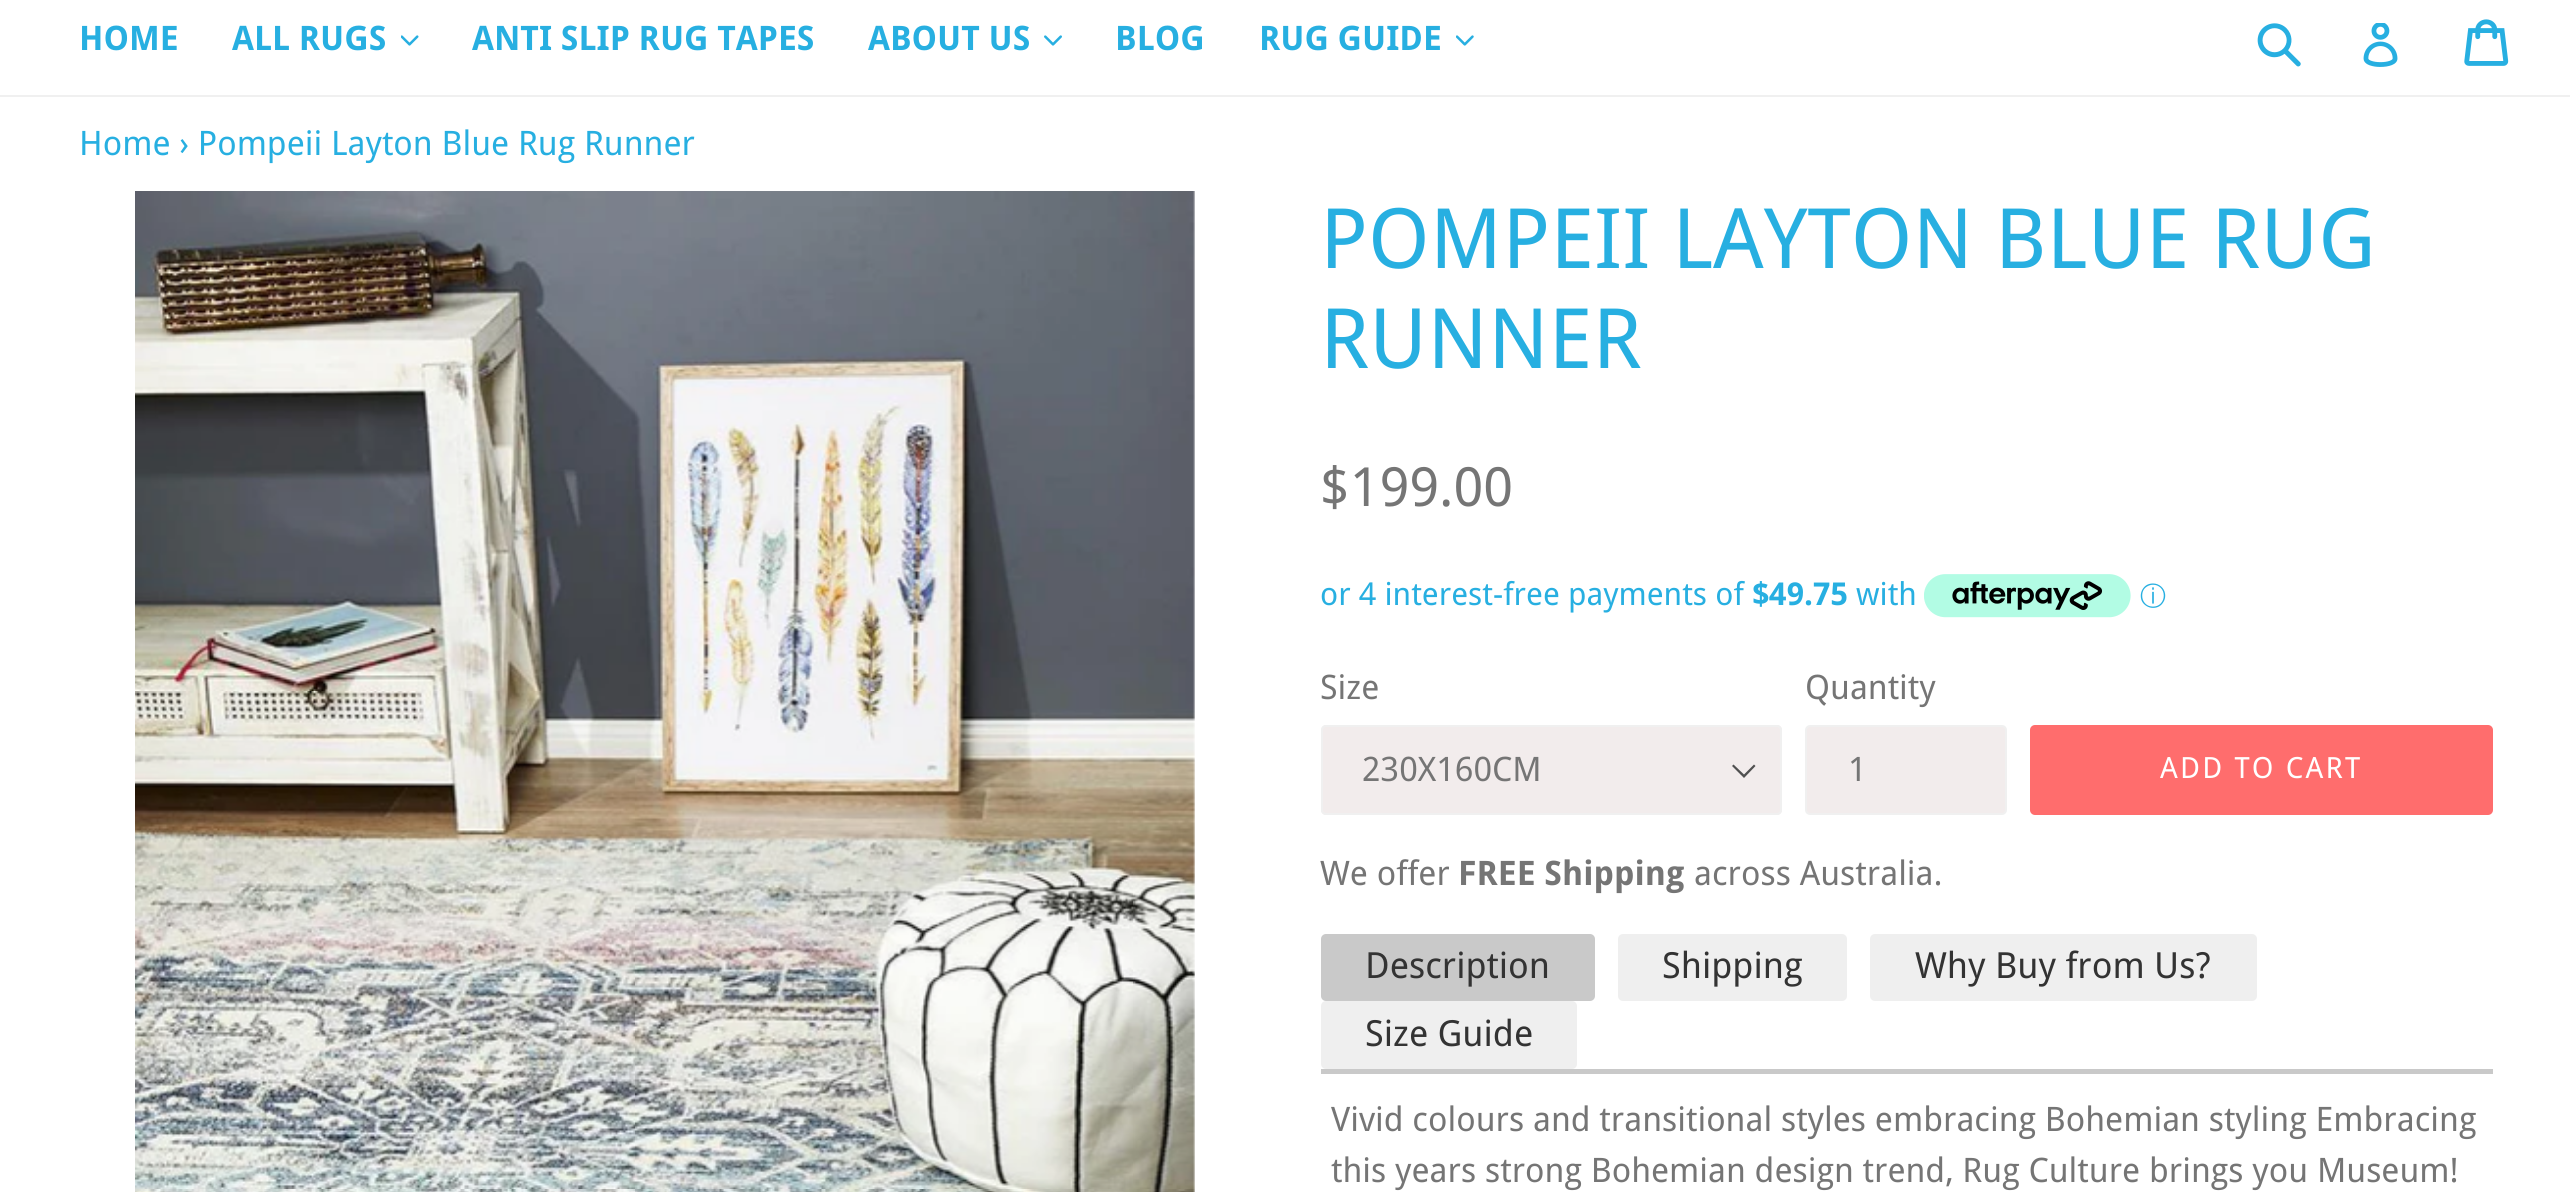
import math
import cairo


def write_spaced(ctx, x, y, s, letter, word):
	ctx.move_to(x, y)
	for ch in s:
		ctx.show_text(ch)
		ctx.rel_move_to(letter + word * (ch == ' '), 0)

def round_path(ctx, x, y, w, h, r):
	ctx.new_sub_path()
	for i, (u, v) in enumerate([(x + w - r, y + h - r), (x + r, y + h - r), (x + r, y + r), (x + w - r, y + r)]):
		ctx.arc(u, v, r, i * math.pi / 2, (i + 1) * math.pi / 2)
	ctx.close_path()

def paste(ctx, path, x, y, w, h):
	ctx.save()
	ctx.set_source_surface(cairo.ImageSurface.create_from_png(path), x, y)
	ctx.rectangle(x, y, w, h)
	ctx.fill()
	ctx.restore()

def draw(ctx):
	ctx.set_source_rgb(1, 1, 1)
	ctx.paint()
	ctx.set_source_rgb(0.941, 0.941, 0.941)
	ctx.rectangle(0, 95, 2570, 2)
	ctx.fill()
	ctx.select_font_face('Droid Sans', cairo.FONT_SLANT_NORMAL, cairo.FONT_WEIGHT_BOLD)
	ctx.set_font_size(33.75)
	ctx.set_source_rgb(0.153, 0.686, 0.882)
	ctx.move_to(79, 50)
	ctx.show_text('HOME')
	ctx.move_to(232, 50)
	ctx.show_text('ALL RUGS')
	paste(ctx, 'media/1.png', 401, 35, 18, 11)
	ctx.move_to(472, 50)
	ctx.show_text('ANTI SLIP RUG TAPES')
	ctx.move_to(868, 50)
	ctx.show_text('ABOUT US')
	paste(ctx, 'media/2.png', 1044, 35, 18, 11)
	ctx.move_to(1115, 50)
	ctx.show_text('BLOG')
	ctx.move_to(1259, 50)
	ctx.show_text('RUG GUIDE')
	paste(ctx, 'media/3.png', 1456, 35, 18, 11)
	paste(ctx, 'media/4.png', 2257, 23, 44, 44)
	paste(ctx, 'media/5.png', 2363, 23, 35, 44)
	paste(ctx, 'media/6.png', 2464, 19, 45, 47)
	ctx.select_font_face('Droid Sans')
	ctx.move_to(79, 155)
	ctx.show_text('Home › Pompeii Layton Blue Rug Runner')
	paste(ctx, 'media/7.png', 135, 191, 1060, 1001)
	ctx.set_font_size(83.25)
	ctx.move_to(1320, 268)
	ctx.show_text('POMPEII LAYTON BLUE RUG')
	ctx.move_to(1320, 368)
	ctx.show_text('RUNNER')
	ctx.set_font_size(54)
	ctx.set_source_rgb(0.459, 0.459, 0.459)
	ctx.move_to(1320, 506)
	ctx.show_text('$199.00')
	ctx.set_font_size(31.5)
	ctx.set_source_rgb(0.153, 0.686, 0.882)
	ctx.move_to(1320, 605)
	ctx.show_text('or 4 interest-free payments of')
	ctx.select_font_face('Droid Sans', cairo.FONT_SLANT_NORMAL, cairo.FONT_WEIGHT_BOLD)
	ctx.move_to(1752, 605)
	ctx.show_text('$49.75')
	ctx.select_font_face('Droid Sans')
	ctx.move_to(1856, 605)
	ctx.show_text('with')
	paste(ctx, 'media/8.png', 1924, 574, 207, 44)
	ctx.select_font_face('WenQuanYi Zen Hei Medium')
	ctx.set_font_size(26)
	ctx.move_to(2140, 605)
	ctx.show_text('ⓘ')
	ctx.select_font_face('Droid Sans')
	ctx.set_font_size(33.75)
	ctx.set_source_rgb(0.459, 0.459, 0.459)
	ctx.move_to(1320, 699)
	ctx.show_text('Size')
	ctx.set_source_rgb(0.949, 0.925, 0.925)
	round_path(ctx, 1321, 725, 461, 90, 5)
	ctx.fill()
	ctx.set_source_rgb(0.314, 0.314, 0.314)
	ctx.new_path()
	ctx.move_to(1744, 778)
	ctx.line_to(1732, 766)
	ctx.line_to(1733.5, 764.5)
	ctx.line_to(1744, 774.5)
	ctx.line_to(1754, 764.5)
	ctx.line_to(1755.5, 766)
	ctx.close_path()
	ctx.fill()
	round_path(ctx, 1322, 726, 459, 88, 4)
	ctx.set_source_rgb(0.941, 0.941, 0.941)
	ctx.stroke()
	ctx.set_source_rgb(0.459, 0.459, 0.459)
	ctx.move_to(1362, 781)
	ctx.show_text('230X160CM')
	ctx.move_to(1805, 699)
	ctx.show_text('Quantity')
	ctx.set_source_rgb(0.949, 0.925, 0.925)
	round_path(ctx, 1806, 726, 200, 88, 4)
	ctx.fill_preserve()
	ctx.set_source_rgb(0.941, 0.941, 0.941)
	ctx.stroke()
	ctx.set_source_rgb(0.459, 0.459, 0.459)
	ctx.move_to(1848, 781)
	ctx.show_text('1')
	ctx.set_source_rgb(1, 0.427, 0.427)
	round_path(ctx, 2030, 725, 463, 90, 5)
	ctx.fill()
	ctx.set_font_size(29.25)
	ctx.set_source_rgb(1, 1, 1)
	write_spaced(ctx, 2160, 778, 'ADD TO CART', 2.25, 0)
	ctx.set_font_size(33.75)
	ctx.set_source_rgb(0.459, 0.459, 0.459)
	ctx.move_to(1320, 885)
	ctx.show_text('We offer')
	ctx.select_font_face('Droid Sans', cairo.FONT_SLANT_NORMAL, cairo.FONT_WEIGHT_BOLD)
	ctx.move_to(1458, 885)
	ctx.show_text('FREE Shipping')
	ctx.select_font_face('Droid Sans')
	ctx.move_to(1694, 885)
	ctx.show_text('across Australia.')
	ctx.set_source_rgb(0.788, 0.788, 0.788)
	ctx.rectangle(1321, 1069, 1172, 5)
	ctx.fill()
	round_path(ctx, 1321, 934, 274, 67, 5)
	ctx.fill()
	ctx.set_font_size(36)
	ctx.set_source_rgb(0.2, 0.2, 0.2)
	ctx.move_to(1365, 978)
	ctx.show_text('Description')
	ctx.set_source_rgb(0.937, 0.937, 0.937)
	round_path(ctx, 1618, 934, 229, 67, 5)
	ctx.fill()
	ctx.set_source_rgb(0.2, 0.2, 0.2)
	ctx.move_to(1662, 978)
	ctx.show_text('Shipping')
	ctx.set_source_rgb(0.937, 0.937, 0.937)
	round_path(ctx, 1870, 934, 387, 67, 5)
	ctx.fill()
	ctx.set_source_rgb(0.2, 0.2, 0.2)
	ctx.move_to(1915, 978)
	ctx.show_text('Why Buy from Us?')
	ctx.set_source_rgb(0.937, 0.937, 0.937)
	round_path(ctx, 1321, 1001, 256, 68, 5)
	ctx.fill()
	ctx.set_source_rgb(0.2, 0.2, 0.2)
	ctx.move_to(1365, 1046)
	ctx.show_text('Size Guide')
	ctx.set_font_size(33.75)
	ctx.set_source_rgb(0.459, 0.459, 0.459)
	ctx.move_to(1331, 1131)
	ctx.show_text('Vivid colours and transitional styles embracing Bohemian styling Embracing')
	ctx.move_to(1331, 1182)
	ctx.show_text('this years strong Bohemian design trend, Rug Culture brings you Museum!')


surface = cairo.ImageSurface(cairo.FORMAT_RGB24, 2570, 1192)
ctx = cairo.Context(surface)
options = cairo.FontOptions()
options.set_hint_metrics(cairo.HINT_METRICS_OFF)
options.set_hint_style(cairo.HINT_STYLE_NONE)
ctx.set_font_options(options)
ctx.set_miter_limit(4)
draw(ctx)
surface.write_to_png('image.png')
